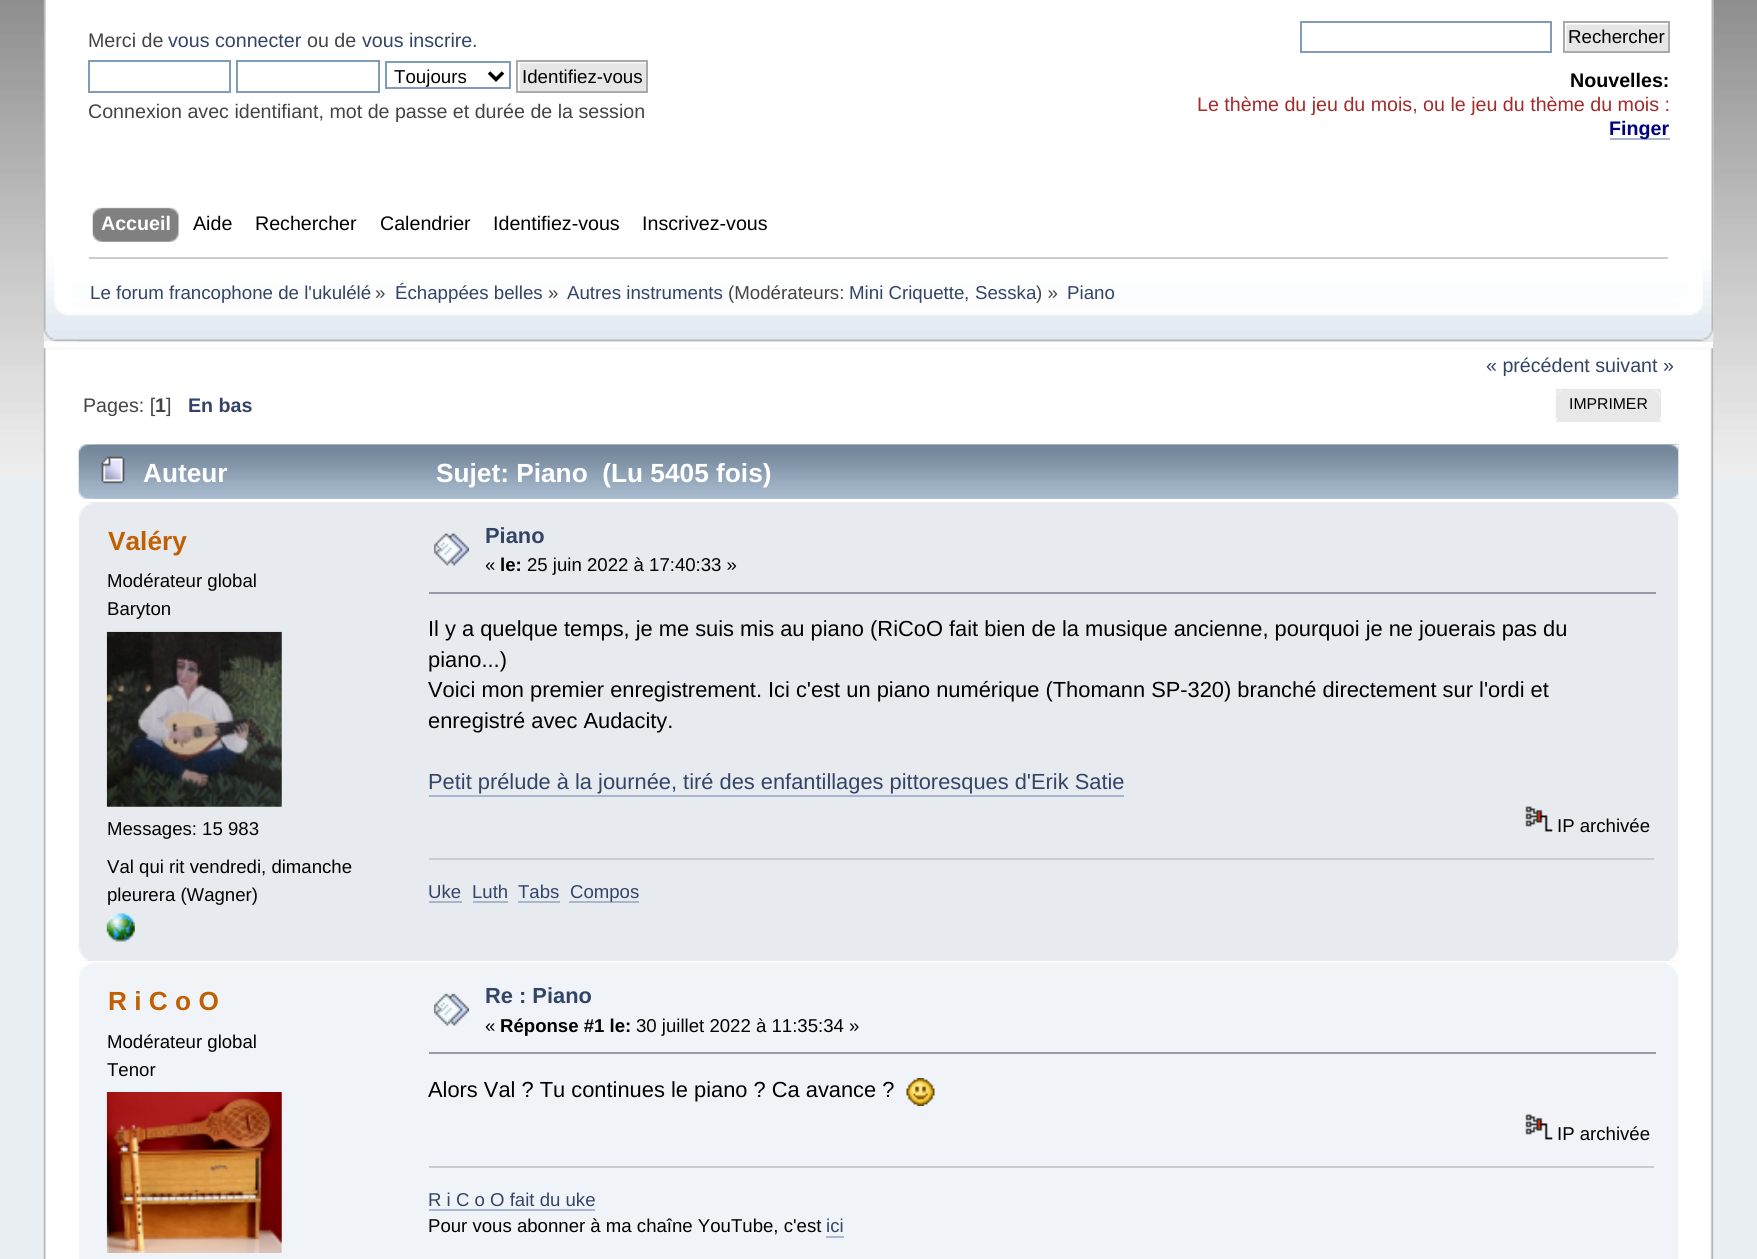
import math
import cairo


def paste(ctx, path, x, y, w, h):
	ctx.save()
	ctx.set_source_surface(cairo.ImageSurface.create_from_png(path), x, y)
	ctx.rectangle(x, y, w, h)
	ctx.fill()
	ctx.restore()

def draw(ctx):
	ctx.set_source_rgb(0.914, 0.933, 0.949)
	ctx.paint()
	paste(ctx, 'media/1.png', 0, 0, 1757, 477)
	ctx.set_source_rgb(0.996, 0.996, 0.996)
	ctx.rectangle(44, 341, 1669, 7)
	ctx.fill()
	paste(ctx, 'media/2.png', 43, 0, 1671, 342)
	paste(ctx, 'media/3.png', 79, 0, 1635, 342)
	ctx.select_font_face('Liberation Sans')
	ctx.set_font_size(19.65)
	ctx.set_source_rgb(0.267, 0.267, 0.267)
	ctx.move_to(88, 47)
	ctx.show_text('Merci de')
	ctx.set_source_rgb(0.2, 0.267, 0.4)
	ctx.move_to(168, 47)
	ctx.show_text('vous connecter')
	ctx.set_source_rgb(0.267, 0.267, 0.267)
	ctx.move_to(307, 47)
	ctx.show_text('ou de')
	ctx.set_source_rgb(0.2, 0.267, 0.4)
	ctx.move_to(362, 47)
	ctx.show_text('vous inscrire')
	ctx.set_source_rgb(0.267, 0.267, 0.267)
	ctx.move_to(472, 47)
	ctx.show_text('.')
	ctx.rectangle(89, 61, 141, 31)
	ctx.set_source_rgb(0.498, 0.616, 0.725)
	ctx.stroke()
	ctx.rectangle(237, 61, 142, 31)
	ctx.stroke()
	ctx.rectangle(386, 62, 124, 26)
	ctx.stroke()
	ctx.new_path()
	ctx.move_to(489, 72.5)
	ctx.line_to(496, 79.5)
	ctx.line_to(503, 72.5)
	ctx.set_source_rgb(0, 0, 0)
	ctx.set_line_width(3.5)
	ctx.stroke()
	ctx.set_font_size(18.7)
	ctx.move_to(394, 83)
	ctx.show_text('Toujours')
	paste(ctx, 'media/4.png', 518, 62, 128, 29)
	ctx.rectangle(517, 61, 130, 31)
	ctx.set_source_rgb(0.667, 0.667, 0.667)
	ctx.set_line_width(2)
	ctx.stroke()
	ctx.set_source_rgb(0, 0, 0)
	ctx.move_to(522, 83)
	ctx.show_text('Identifiez-vous')
	ctx.set_font_size(19.65)
	ctx.set_source_rgb(0.267, 0.267, 0.267)
	ctx.move_to(88, 118)
	ctx.show_text('Connexion avec identifiant, mot de passe et durée de la session')
	ctx.rectangle(1301, 22, 250, 30)
	ctx.set_source_rgb(0.498, 0.616, 0.725)
	ctx.stroke()
	paste(ctx, 'media/5.png', 1565, 23, 103, 28)
	ctx.rectangle(1564, 22, 105, 30)
	ctx.set_source_rgb(0.667, 0.667, 0.667)
	ctx.stroke()
	ctx.set_font_size(18.7)
	ctx.set_source_rgb(0, 0, 0)
	ctx.move_to(1568, 43)
	ctx.show_text('Rechercher')
	ctx.select_font_face('Liberation Sans', cairo.FONT_SLANT_NORMAL, cairo.FONT_WEIGHT_BOLD)
	ctx.set_font_size(19.65)
	ctx.move_to(1570, 87)
	ctx.show_text('Nouvelles:')
	ctx.select_font_face('Liberation Sans')
	ctx.set_source_rgb(0.647, 0.165, 0.165)
	ctx.move_to(1197, 111)
	ctx.show_text('Le thème du jeu du mois, ou le jeu du thème du mois :')
	ctx.set_source_rgb(0.659, 0.714, 0.812)
	ctx.rectangle(1610, 138, 60, 2)
	ctx.fill()
	ctx.select_font_face('Liberation Sans', cairo.FONT_SLANT_NORMAL, cairo.FONT_WEIGHT_BOLD)
	ctx.set_source_rgb(0, 0, 0.502)
	ctx.move_to(1609, 135)
	ctx.show_text('Finger')
	paste(ctx, 'media/6.png', 101, 207, 78, 35)
	paste(ctx, 'media/7.png', 92, 207, 78, 35)
	ctx.set_source_rgb(1, 1, 1)
	ctx.move_to(101, 230)
	ctx.show_text('Accueil')
	ctx.select_font_face('Liberation Sans')
	ctx.set_source_rgb(0, 0, 0)
	for x, y, s in [
		(193, 230, 'Aide'),
		(255, 230, 'Rechercher'),
		(380, 230, 'Calendrier'),
		(493, 230, 'Identifiez-vous'),
		(642, 230, 'Inscrivez-vous'),
	]:
		ctx.move_to(x, y)
		ctx.show_text(s)
	ctx.set_source_rgb(0.8, 0.8, 0.8)
	ctx.rectangle(89, 257, 1579, 2)
	ctx.fill()
	ctx.set_font_size(18.7)
	ctx.set_source_rgb(0.2, 0.267, 0.4)
	ctx.move_to(90, 299)
	ctx.show_text('Le forum francophone de l\'ukulélé')
	ctx.set_source_rgb(0.267, 0.267, 0.267)
	ctx.move_to(375, 299)
	ctx.show_text('»')
	ctx.set_source_rgb(0.2, 0.267, 0.4)
	ctx.move_to(395, 299)
	ctx.show_text('Échappées belles')
	ctx.set_source_rgb(0.267, 0.267, 0.267)
	ctx.move_to(548, 299)
	ctx.show_text('»')
	ctx.set_source_rgb(0.2, 0.267, 0.4)
	ctx.move_to(567, 299)
	ctx.show_text('Autres instruments')
	ctx.set_source_rgb(0.267, 0.267, 0.267)
	ctx.move_to(728, 299)
	ctx.show_text('(Modérateurs:')
	ctx.set_source_rgb(0.2, 0.267, 0.4)
	ctx.move_to(849, 299)
	ctx.show_text('Mini Criquette')
	ctx.set_source_rgb(0.267, 0.267, 0.267)
	ctx.move_to(964, 299)
	ctx.show_text(',')
	ctx.set_source_rgb(0.2, 0.267, 0.4)
	ctx.move_to(975, 299)
	ctx.show_text('Sesska')
	ctx.set_source_rgb(0.267, 0.267, 0.267)
	ctx.move_to(1036, 299)
	ctx.show_text(') »')
	ctx.set_source_rgb(0.2, 0.267, 0.4)
	ctx.move_to(1067, 299)
	ctx.show_text('Piano')
	paste(ctx, 'media/8.png', 43, 348, 1671, 911)
	paste(ctx, 'media/9.png', 1710, 348, 4, 911)
	ctx.set_font_size(19.65)
	ctx.move_to(1486, 372)
	ctx.show_text('« précédent suivant »')
	ctx.set_source_rgb(0.267, 0.267, 0.267)
	ctx.move_to(83, 412)
	ctx.show_text('Pages: [')
	ctx.select_font_face('Liberation Sans', cairo.FONT_SLANT_NORMAL, cairo.FONT_WEIGHT_BOLD)
	ctx.move_to(155, 412)
	ctx.show_text('1')
	ctx.select_font_face('Liberation Sans')
	ctx.move_to(166, 412)
	ctx.show_text(']')
	ctx.select_font_face('Liberation Sans', cairo.FONT_SLANT_NORMAL, cairo.FONT_WEIGHT_BOLD)
	ctx.set_source_rgb(0.2, 0.267, 0.4)
	ctx.move_to(188, 412)
	ctx.show_text('En bas')
	ctx.set_source_rgb(0.91, 0.91, 0.91)
	ctx.rectangle(1556, 389, 105, 33)
	ctx.fill()
	paste(ctx, 'media/10.png', 1555, 390, 7, 32)
	paste(ctx, 'media/11.png', 1655, 390, 6, 32)
	ctx.select_font_face('Liberation Sans')
	ctx.set_font_size(15.75)
	ctx.set_source_rgb(0, 0, 0)
	ctx.move_to(1569, 409)
	ctx.show_text('IMPRIMER')
	paste(ctx, 'media/12.png', 78, 444, 1601, 55)
	paste(ctx, 'media/13.png', 94, 444, 1585, 55)
	paste(ctx, 'media/14.png', 101, 456, 24, 28)
	ctx.select_font_face('Liberation Sans', cairo.FONT_SLANT_NORMAL, cairo.FONT_WEIGHT_BOLD)
	ctx.set_font_size(26.25)
	ctx.set_source_rgb(1, 1, 1)
	ctx.move_to(143, 482)
	ctx.show_text('Auteur')
	ctx.move_to(436, 482)
	ctx.show_text('Sujet: Piano  (Lu 5405 fois)')
	ctx.set_source_rgb(0.906, 0.918, 0.937)
	ctx.rectangle(79, 502, 1599, 459)
	ctx.fill()
	paste(ctx, 'media/15.png', 78, 502, 1601, 19)
	paste(ctx, 'media/16.png', 1664, 502, 15, 19)
	ctx.set_source_rgb(0.753, 0.376, 0.008)
	ctx.move_to(108, 550)
	ctx.show_text('Valéry')
	ctx.select_font_face('Liberation Sans')
	ctx.set_font_size(18.6)
	ctx.set_source_rgb(0, 0, 0)
	ctx.move_to(107, 587)
	ctx.show_text('Modérateur global')
	ctx.move_to(107, 615)
	ctx.show_text('Baryton')
	paste(ctx, 'media/17.png', 106, 631, 176, 176)
	for x, y, s in [
		(107, 835, 'Messages: 15 983'),
		(107, 873, 'Val qui rit vendredi, dimanche'),
		(107, 901, 'pleurera (Wagner)'),
	]:
		ctx.move_to(x, y)
		ctx.show_text(s)
	paste(ctx, 'media/18.png', 106, 913, 29, 29)
	paste(ctx, 'media/19.png', 434, 533, 35, 33)
	ctx.select_font_face('Liberation Sans', cairo.FONT_SLANT_NORMAL, cairo.FONT_WEIGHT_BOLD)
	ctx.set_font_size(21.85)
	ctx.set_source_rgb(0.2, 0.267, 0.4)
	ctx.move_to(485, 543)
	ctx.show_text('Piano')
	ctx.select_font_face('Liberation Sans')
	ctx.set_font_size(18.6)
	ctx.set_source_rgb(0, 0, 0)
	ctx.move_to(485, 571)
	ctx.show_text('«')
	ctx.select_font_face('Liberation Sans', cairo.FONT_SLANT_NORMAL, cairo.FONT_WEIGHT_BOLD)
	ctx.move_to(500, 571)
	ctx.show_text('le:')
	ctx.select_font_face('Liberation Sans')
	ctx.move_to(527, 571)
	ctx.show_text('25 juin 2022 à 17:40:33 »')
	ctx.set_source_rgb(0.6, 0.6, 0.667)
	ctx.rectangle(429, 592, 1227, 2)
	ctx.fill()
	ctx.set_font_size(21.85)
	ctx.set_source_rgb(0, 0, 0)
	for x, y, s in [
		(428, 636, 'Il y a quelque temps, je me suis mis au piano (RiCoO fait bien de la musique ancienne, pourquoi je ne jouerais pas du'),
		(428, 667, 'piano...)'),
		(428, 697, 'Voici mon premier enregistrement. Ici c\'est un piano numérique (Thomann SP-320) branché directement sur l\'ordi et'),
		(428, 728, 'enregistré avec Audacity.'),
	]:
		ctx.move_to(x, y)
		ctx.show_text(s)
	ctx.set_source_rgb(0.2, 0.267, 0.4)
	ctx.move_to(428, 789)
	ctx.show_text('Petit prélude à la journée, tiré des enfantillages pittoresques d\'Erik Satie')
	ctx.set_source_rgb(0.659, 0.714, 0.812)
	ctx.rectangle(429, 795, 695, 2)
	ctx.fill()
	paste(ctx, 'media/20.png', 1525, 806, 28, 26)
	ctx.set_font_size(18.6)
	ctx.set_source_rgb(0, 0, 0)
	ctx.move_to(1557, 832)
	ctx.show_text('IP archivée')
	ctx.set_source_rgb(0.8, 0.8, 0.8)
	ctx.rectangle(429, 858, 1225, 2)
	ctx.fill()
	ctx.set_source_rgb(0.2, 0.267, 0.4)
	ctx.move_to(428, 898)
	ctx.show_text('Uke')
	ctx.set_source_rgb(0.659, 0.714, 0.812)
	ctx.rectangle(429, 901, 33, 2)
	ctx.fill()
	ctx.set_source_rgb(0.2, 0.267, 0.4)
	ctx.move_to(472, 898)
	ctx.show_text('Luth')
	ctx.set_source_rgb(0.659, 0.714, 0.812)
	ctx.rectangle(473, 901, 35, 2)
	ctx.fill()
	ctx.set_source_rgb(0.2, 0.267, 0.4)
	ctx.move_to(518, 898)
	ctx.show_text('Tabs')
	ctx.set_source_rgb(0.659, 0.714, 0.812)
	ctx.rectangle(518, 901, 42, 2)
	ctx.fill()
	ctx.rectangle(569, 901, 70, 2)
	ctx.fill()
	ctx.set_source_rgb(0.2, 0.267, 0.4)
	ctx.move_to(570, 898)
	ctx.show_text('Compos')
	paste(ctx, 'media/21.png', 78, 942, 1601, 19)
	paste(ctx, 'media/22.png', 1669, 942, 10, 19)
	ctx.set_source_rgb(0.941, 0.957, 0.969)
	ctx.rectangle(79, 981, 1599, 278)
	ctx.fill()
	paste(ctx, 'media/23.png', 78, 962, 1601, 19)
	paste(ctx, 'media/24.png', 1665, 962, 13, 14)
	ctx.select_font_face('Liberation Sans', cairo.FONT_SLANT_NORMAL, cairo.FONT_WEIGHT_BOLD)
	ctx.set_font_size(26.25)
	ctx.set_source_rgb(0.753, 0.376, 0.008)
	ctx.move_to(108, 1010)
	ctx.show_text('R i C o O')
	ctx.select_font_face('Liberation Sans')
	ctx.set_font_size(18.6)
	ctx.set_source_rgb(0, 0, 0)
	ctx.move_to(107, 1048)
	ctx.show_text('Modérateur global')
	ctx.move_to(107, 1076)
	ctx.show_text('Tenor')
	paste(ctx, 'media/25.png', 106, 1092, 176, 161)
	paste(ctx, 'media/26.png', 434, 993, 35, 33)
	ctx.select_font_face('Liberation Sans', cairo.FONT_SLANT_NORMAL, cairo.FONT_WEIGHT_BOLD)
	ctx.set_font_size(21.85)
	ctx.set_source_rgb(0.2, 0.267, 0.4)
	ctx.move_to(485, 1003)
	ctx.show_text('Re : Piano')
	ctx.select_font_face('Liberation Sans')
	ctx.set_font_size(18.6)
	ctx.set_source_rgb(0, 0, 0)
	ctx.move_to(485, 1032)
	ctx.show_text('«')
	ctx.select_font_face('Liberation Sans', cairo.FONT_SLANT_NORMAL, cairo.FONT_WEIGHT_BOLD)
	ctx.move_to(500, 1032)
	ctx.show_text('Réponse #1 le:')
	ctx.select_font_face('Liberation Sans')
	ctx.move_to(636, 1032)
	ctx.show_text('30 juillet 2022 à 11:35:34 »')
	ctx.set_source_rgb(0.6, 0.6, 0.667)
	ctx.rectangle(429, 1052, 1227, 2)
	ctx.fill()
	ctx.set_font_size(21.85)
	ctx.set_source_rgb(0, 0, 0)
	ctx.move_to(428, 1097)
	ctx.show_text('Alors Val ? Tu continues le piano ? Ca avance ?')
	paste(ctx, 'media/27.png', 906, 1078, 29, 28)
	paste(ctx, 'media/28.png', 1525, 1114, 28, 26)
	ctx.set_font_size(18.6)
	ctx.move_to(1557, 1140)
	ctx.show_text('IP archivée')
	ctx.set_source_rgb(0.8, 0.8, 0.8)
	ctx.rectangle(429, 1166, 1225, 2)
	ctx.fill()
	ctx.set_source_rgb(0.2, 0.267, 0.4)
	ctx.move_to(428, 1206)
	ctx.show_text('R i C o O fait du uke')
	ctx.set_source_rgb(0.659, 0.714, 0.812)
	ctx.rectangle(429, 1209, 166, 2)
	ctx.fill()
	ctx.set_source_rgb(0, 0, 0)
	ctx.move_to(428, 1232)
	ctx.show_text('Pour vous abonner à ma chaîne YouTube, c\'est')
	ctx.set_source_rgb(0.2, 0.267, 0.4)
	ctx.move_to(826, 1232)
	ctx.show_text('ici')
	ctx.set_source_rgb(0.659, 0.714, 0.812)
	ctx.rectangle(826, 1236, 18, 2)
	ctx.fill()


surface = cairo.ImageSurface(cairo.FORMAT_RGB24, 1757, 1259)
ctx = cairo.Context(surface)
options = cairo.FontOptions()
options.set_hint_metrics(cairo.HINT_METRICS_OFF)
options.set_hint_style(cairo.HINT_STYLE_NONE)
ctx.set_font_options(options)
ctx.set_miter_limit(4)
draw(ctx)
surface.write_to_png('image.png')
